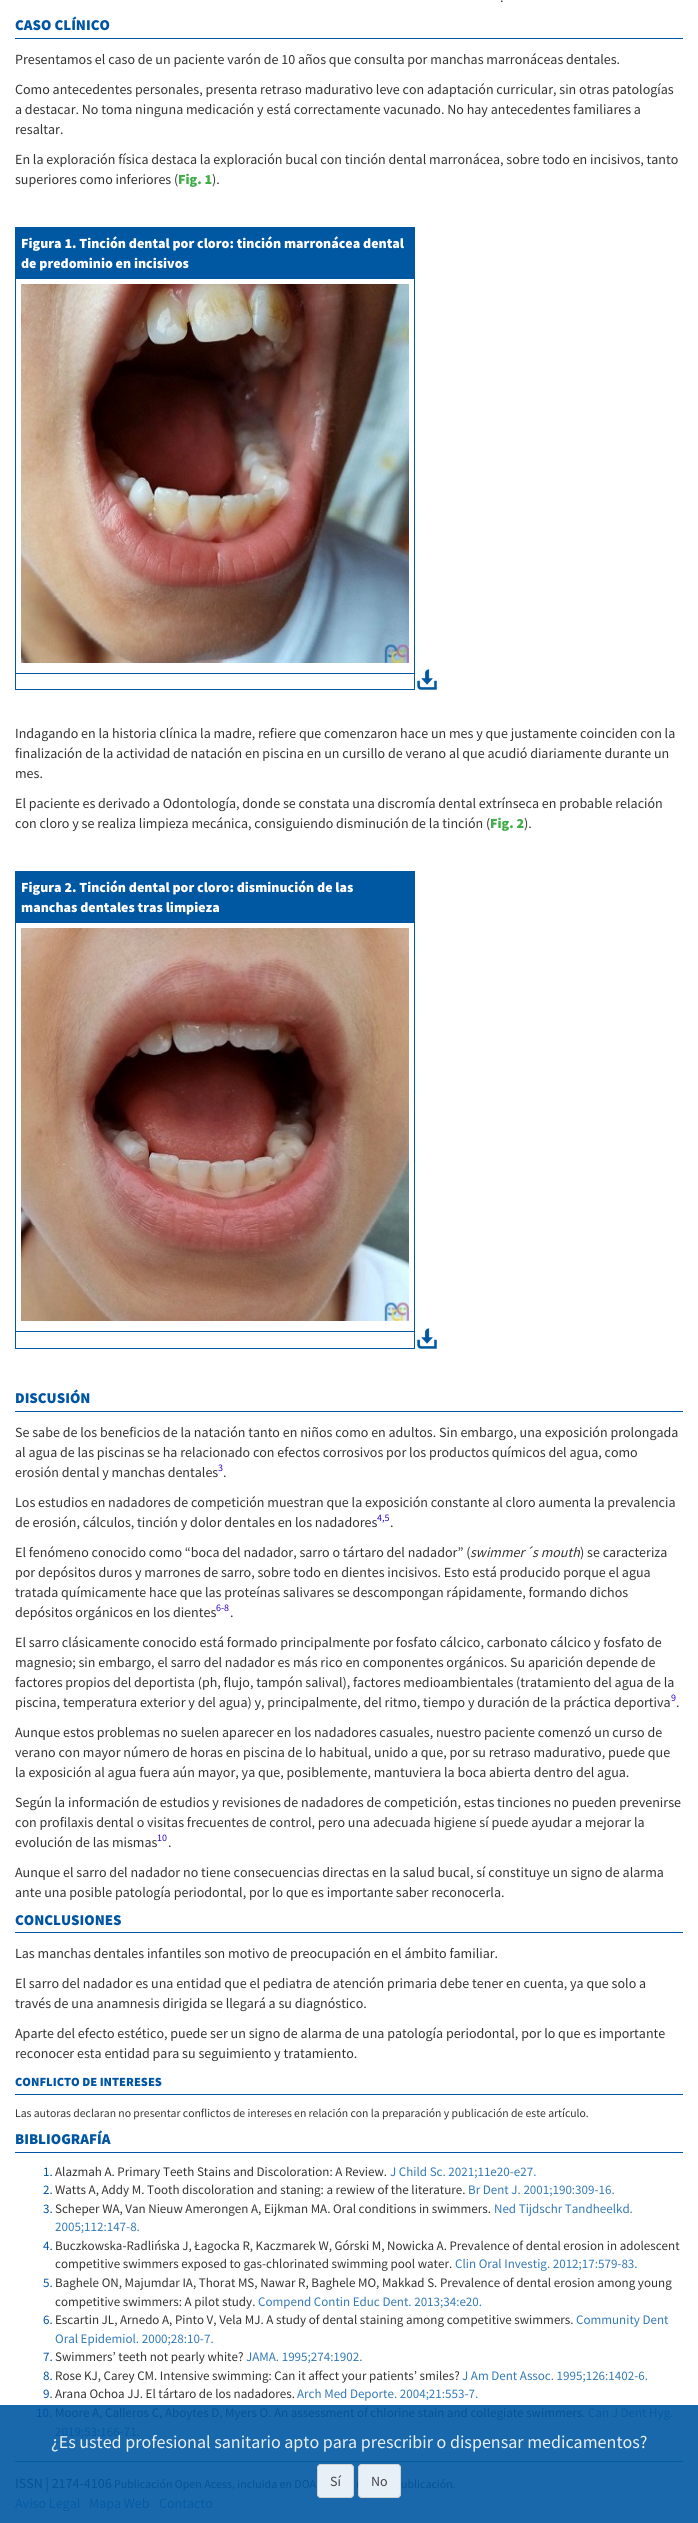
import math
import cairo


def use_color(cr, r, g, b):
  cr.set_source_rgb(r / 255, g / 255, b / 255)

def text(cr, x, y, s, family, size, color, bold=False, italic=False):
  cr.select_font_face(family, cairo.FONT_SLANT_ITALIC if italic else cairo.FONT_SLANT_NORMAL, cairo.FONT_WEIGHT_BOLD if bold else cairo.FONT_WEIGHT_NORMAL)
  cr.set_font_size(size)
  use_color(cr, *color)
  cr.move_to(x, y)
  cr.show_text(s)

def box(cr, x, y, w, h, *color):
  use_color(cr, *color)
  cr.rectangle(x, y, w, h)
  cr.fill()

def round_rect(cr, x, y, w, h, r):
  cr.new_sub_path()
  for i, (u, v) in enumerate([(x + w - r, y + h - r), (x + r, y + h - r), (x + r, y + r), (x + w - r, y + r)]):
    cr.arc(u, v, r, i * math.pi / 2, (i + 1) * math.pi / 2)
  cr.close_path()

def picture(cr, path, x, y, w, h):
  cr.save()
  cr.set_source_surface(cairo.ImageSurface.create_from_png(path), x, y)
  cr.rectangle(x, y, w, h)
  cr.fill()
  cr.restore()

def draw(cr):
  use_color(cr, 255, 255, 255)
  cr.paint()
  box(cr, 0, 2405, 698, 118, 25, 104, 171)
  box(cr, 15, 38, 668, 1, 0, 84, 164)
  box(cr, 15, 227, 400, 1, 0, 87, 162)
  box(cr, 414, 227, 1, 463, 0, 87, 162)
  box(cr, 15, 689, 400, 1, 0, 87, 162)
  box(cr, 15, 227, 1, 463, 0, 87, 162)
  box(cr, 16, 228, 398, 50, 0, 87, 162)
  box(cr, 15, 278, 400, 1, 0, 87, 162)
  box(cr, 15, 673, 400, 1, 0, 87, 162)
  picture(cr, "img_01.png", 21, 284, 388, 379)
  picture(cr, "img_02.png", 417, 669, 20, 21)
  box(cr, 15, 871, 400, 1, 0, 87, 162)
  box(cr, 414, 871, 1, 478, 0, 87, 162)
  box(cr, 15, 1348, 400, 1, 0, 87, 162)
  box(cr, 15, 871, 1, 478, 0, 87, 162)
  box(cr, 16, 872, 398, 51, 0, 87, 162)
  box(cr, 15, 1331, 400, 1, 0, 87, 162)
  picture(cr, "img_03.png", 21, 928, 388, 393)
  picture(cr, "img_02.png", 417, 1328, 20, 21)
  box(cr, 15, 1411, 668, 1, 0, 84, 164)
  box(cr, 15, 1932, 668, 1, 0, 84, 164)
  box(cr, 15, 2094, 668, 1, 0, 84, 164)
  box(cr, 15, 2152, 668, 1, 0, 84, 164)
  box(cr, 15, 2461, 668, 1, 3, 91, 159)
  cr.set_source_rgba(1, 1, 1, 0.9)
  round_rect(cr, 317, 2464, 37, 34, 4)
  cr.fill()
  round_rect(cr, 317.5, 2464.5, 36, 33, 3.5)
  cr.set_source_rgba(0.8, 0.8, 0.8, 0.9)
  cr.set_line_width(1)
  cr.stroke()
  text(cr, 500, 2, ".", "Source Sans Pro", 14, (51, 51, 51))
  text(cr, 15, 30, "CASO CLÍNICO", "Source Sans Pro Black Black", 15, (0, 84, 164))
  text(cr, 15, 64, "Presentamos el caso de un paciente varón de 10 años que consulta por manchas marronáceas dentales.", "Source Sans Pro", 14, (51, 51, 51))
  text(cr, 15, 94, "Como antecedentes personales, presenta retraso madurativo leve con adaptación curricular, sin otras patologías", "Source Sans Pro", 14, (51, 51, 51))
  text(cr, 15, 114, "a destacar. No toma ninguna medicación y está correctamente vacunado. No hay antecedentes familiares a", "Source Sans Pro", 14, (51, 51, 51))
  text(cr, 15, 134, "resaltar.", "Source Sans Pro", 14, (51, 51, 51))
  text(cr, 15, 164, "En la exploración física destaca la exploración bucal con tinción dental marronácea, sobre todo en incisivos, tanto", "Source Sans Pro", 14, (51, 51, 51))
  text(cr, 15, 184, "superiores como inferiores (", "Source Sans Pro", 14, (51, 51, 51))
  text(cr, 178, 184, "Fig. 1", "Source Sans Pro Black Black", 14, (65, 173, 73))
  text(cr, 212, 184, ").", "Source Sans Pro", 14, (51, 51, 51))
  text(cr, 21, 248, "Figura 1. Tinción dental por cloro: tinción marronácea dental", "Source Sans Pro Black Black", 14, (255, 255, 255))
  text(cr, 21, 268, "de predominio en incisivos", "Source Sans Pro Black Black", 14, (255, 255, 255))
  text(cr, 15, 738, "Indagando en la historia clínica la madre, refiere que comenzaron hace un mes y que justamente coinciden con la", "Source Sans Pro", 14, (51, 51, 51))
  text(cr, 15, 758, "finalización de la actividad de natación en piscina en un cursillo de verano al que acudió diariamente durante un", "Source Sans Pro", 14, (51, 51, 51))
  text(cr, 15, 778, "mes.", "Source Sans Pro", 14, (51, 51, 51))
  text(cr, 15, 808, "El paciente es derivado a Odontología, donde se constata una discromía dental extrínseca en probable relación", "Source Sans Pro", 14, (51, 51, 51))
  text(cr, 15, 828, "con cloro y se realiza limpieza mecánica, consiguiendo disminución de la tinción (", "Source Sans Pro", 14, (51, 51, 51))
  text(cr, 490, 828, "Fig. 2", "Source Sans Pro Black Black", 14, (65, 173, 73))
  text(cr, 524, 828, ").", "Source Sans Pro", 14, (51, 51, 51))
  text(cr, 21, 892, "Figura 2. Tinción dental por cloro: disminución de las", "Source Sans Pro Black Black", 14, (255, 255, 255))
  text(cr, 21, 912, "manchas dentales tras limpieza", "Source Sans Pro Black Black", 14, (255, 255, 255))
  text(cr, 15, 1403, "DISCUSIÓN", "Source Sans Pro Black Black", 15, (0, 84, 164))
  text(cr, 15, 1437, "Se sabe de los beneficios de la natación tanto en niños como en adultos. Sin embargo, una exposición prolongada", "Source Sans Pro", 14, (51, 51, 51))
  text(cr, 15, 1457, "al agua de las piscinas se ha relacionado con efectos corrosivos por los productos químicos del agua, como", "Source Sans Pro", 14, (51, 51, 51))
  text(cr, 15, 1477, "erosión dental y manchas dentales", "Source Sans Pro", 14, (51, 51, 51))
  text(cr, 218, 1471, "3", "Source Sans Pro", 10, (51, 0, 204))
  text(cr, 223, 1477, ".", "Source Sans Pro", 14, (51, 51, 51))
  text(cr, 15, 1507, "Los estudios en nadadores de competición muestran que la exposición constante al cloro aumenta la prevalencia", "Source Sans Pro", 14, (51, 51, 51))
  text(cr, 15, 1527, "de erosión, cálculos, tinción y dolor dentales en los nadadores", "Source Sans Pro", 14, (51, 51, 51))
  text(cr, 377, 1521, "4,5", "Source Sans Pro", 10, (51, 0, 204))
  text(cr, 390, 1527, ".", "Source Sans Pro", 14, (51, 51, 51))
  text(cr, 15, 1557, "El fenómeno conocido como “boca del nadador, sarro o tártaro del nadador” (", "Source Sans Pro", 14, (51, 51, 51))
  text(cr, 470, 1557, "swimmer´s mouth", "Source Sans Pro", 14, (51, 51, 51), italic=True)
  text(cr, 580, 1557, ") se caracteriza", "Source Sans Pro", 14, (51, 51, 51))
  text(cr, 15, 1577, "por depósitos duros y marrones de sarro, sobre todo en dientes incisivos. Esto está producido porque el agua", "Source Sans Pro", 14, (51, 51, 51))
  text(cr, 15, 1597, "tratada químicamente hace que las proteínas salivares se descompongan rápidamente, formando dichos", "Source Sans Pro", 14, (51, 51, 51))
  text(cr, 15, 1617, "depósitos orgánicos en los dientes", "Source Sans Pro", 14, (51, 51, 51))
  text(cr, 216, 1611, "6-8", "Source Sans Pro", 10, (51, 0, 204))
  text(cr, 230, 1617, ".", "Source Sans Pro", 14, (51, 51, 51))
  text(cr, 15, 1647, "El sarro clásicamente conocido está formado principalmente por fosfato cálcico, carbonato cálcico y fosfato de", "Source Sans Pro", 14, (51, 51, 51))
  text(cr, 15, 1667, "magnesio; sin embargo, el sarro del nadador es más rico en componentes orgánicos. Su aparición depende de", "Source Sans Pro", 14, (51, 51, 51))
  text(cr, 15, 1687, "factores propios del deportista (ph, flujo, tampón salival), factores medioambientales (tratamiento del agua de la", "Source Sans Pro", 14, (51, 51, 51))
  text(cr, 15, 1707, "piscina, temperatura exterior y del agua) y, principalmente, del ritmo, tiempo y duración de la práctica deportiva", "Source Sans Pro", 14, (51, 51, 51))
  text(cr, 671, 1701, "9", "Source Sans Pro", 10, (51, 0, 204))
  text(cr, 676, 1707, ".", "Source Sans Pro", 14, (51, 51, 51))
  text(cr, 15, 1737, "Aunque estos problemas no suelen aparecer en los nadadores casuales, nuestro paciente comenzó un curso de", "Source Sans Pro", 14, (51, 51, 51))
  text(cr, 15, 1757, "verano con mayor número de horas en piscina de lo habitual, unido a que, por su retraso madurativo, puede que", "Source Sans Pro", 14, (51, 51, 51))
  text(cr, 15, 1777, "la exposición al agua fuera aún mayor, ya que, posiblemente, mantuviera la boca abierta dentro del agua.", "Source Sans Pro", 14, (51, 51, 51))
  text(cr, 15, 1807, "Según la información de estudios y revisiones de nadadores de competición, estas tinciones no pueden prevenirse", "Source Sans Pro", 14, (51, 51, 51))
  text(cr, 15, 1827, "con profilaxis dental o visitas frecuentes de control, pero una adecuada higiene sí puede ayudar a mejorar la", "Source Sans Pro", 14, (51, 51, 51))
  text(cr, 15, 1847, "evolución de las mismas", "Source Sans Pro", 14, (51, 51, 51))
  text(cr, 157, 1841, "10", "Source Sans Pro", 10, (51, 0, 204))
  text(cr, 168, 1847, ".", "Source Sans Pro", 14, (51, 51, 51))
  text(cr, 15, 1877, "Aunque el sarro del nadador no tiene consecuencias directas en la salud bucal, sí constituye un signo de alarma", "Source Sans Pro", 14, (51, 51, 51))
  text(cr, 15, 1897, "ante una posible patología periodontal, por lo que es importante saber reconocerla.", "Source Sans Pro", 14, (51, 51, 51))
  text(cr, 15, 1925, "CONCLUSIONES", "Source Sans Pro Black Black", 15, (0, 84, 164))
  text(cr, 15, 1958, "Las manchas dentales infantiles son motivo de preocupación en el ámbito familiar.", "Source Sans Pro", 14, (51, 51, 51))
  text(cr, 15, 1988, "El sarro del nadador es una entidad que el pediatra de atención primaria debe tener en cuenta, ya que solo a", "Source Sans Pro", 14, (51, 51, 51))
  text(cr, 15, 2008, "través de una anamnesis dirigida se llegará a su diagnóstico.", "Source Sans Pro", 14, (51, 51, 51))
  text(cr, 15, 2038, "Aparte del efecto estético, puede ser un signo de alarma de una patología periodontal, por lo que es importante", "Source Sans Pro", 14, (51, 51, 51))
  text(cr, 15, 2058, "reconocer esta entidad para su seguimiento y tratamiento.", "Source Sans Pro", 14, (51, 51, 51))
  text(cr, 15, 2086, "CONFLICTO DE INTERESES", "Source Sans Pro Black Black", 12.5, (0, 84, 164))
  text(cr, 15, 2117, "Las autoras declaran no presentar conflictos de intereses en relación con la preparación y publicación de este artículo.", "Source Sans Pro", 11.65, (51, 51, 51))
  text(cr, 15, 2144, "BIBLIOGRAFÍA", "Source Sans Pro Black Black", 15, (0, 84, 164))
  text(cr, 43, 2176, "1.", "Source Sans Pro", 13, (0, 84, 164))
  text(cr, 55, 2176, "Alazmah A. Primary Teeth Stains and Discoloration: A Review.", "Source Sans Pro", 13, (51, 51, 51))
  text(cr, 390, 2176, "J Child Sc. 2021;11e20-e27.", "Source Sans Pro", 13, (51, 122, 183))
  text(cr, 43, 2194, "2.", "Source Sans Pro", 13, (0, 84, 164))
  text(cr, 55, 2194, "Watts A, Addy M. Tooth discoloration and staning: a rewiew of the literature.", "Source Sans Pro", 13, (51, 51, 51))
  text(cr, 468, 2194, "Br Dent J. 2001;190:309-16.", "Source Sans Pro", 13, (51, 122, 183))
  text(cr, 43, 2213, "3.", "Source Sans Pro", 13, (0, 84, 164))
  text(cr, 55, 2213, "Scheper WA, Van Nieuw Amerongen A, Eijkman MA. Oral conditions in swimmers.", "Source Sans Pro", 13, (51, 51, 51))
  text(cr, 494, 2213, "Ned Tijdschr Tandheelkd.", "Source Sans Pro", 13, (51, 122, 183))
  text(cr, 55, 2231, "2005;112:147-8.", "Source Sans Pro", 13, (51, 122, 183))
  text(cr, 43, 2250, "4.", "Source Sans Pro", 13, (0, 84, 164))
  text(cr, 55, 2250, "Buczkowska-Radlińska J, Łagocka R, Kaczmarek W, Górski M, Nowicka A. Prevalence of dental erosion in adolescent", "Source Sans Pro", 13, (51, 51, 51))
  text(cr, 55, 2268, "competitive swimmers exposed to gas-chlorinated swimming pool water.", "Source Sans Pro", 13, (51, 51, 51))
  text(cr, 455, 2268, "Clin Oral Investig. 2012;17:579-83.", "Source Sans Pro", 13, (51, 122, 183))
  text(cr, 43, 2287, "5.", "Source Sans Pro", 13, (0, 84, 164))
  text(cr, 55, 2287, "Baghele ON, Majumdar IA, Thorat MS, Nawar R, Baghele MO, Makkad S. Prevalence of dental erosion among young", "Source Sans Pro", 13, (51, 51, 51))
  text(cr, 55, 2306, "competitive swimmers: A pilot study.", "Source Sans Pro", 13, (51, 51, 51))
  text(cr, 258, 2306, "Compend Contin Educ Dent. 2013;34:e20.", "Source Sans Pro", 13, (51, 122, 183))
  text(cr, 43, 2324, "6.", "Source Sans Pro", 13, (0, 84, 164))
  text(cr, 55, 2324, "Escartin JL, Arnedo A, Pinto V, Vela MJ. A study of dental staining among competitive swimmers.", "Source Sans Pro", 13, (51, 51, 51))
  text(cr, 576, 2324, "Community Dent", "Source Sans Pro", 13, (51, 122, 183))
  text(cr, 55, 2343, "Oral Epidemiol. 2000;28:10-7.", "Source Sans Pro", 13, (51, 122, 183))
  text(cr, 43, 2361, "7.", "Source Sans Pro", 13, (0, 84, 164))
  text(cr, 55, 2361, "Swimmers’ teeth not pearly white?", "Source Sans Pro", 13, (51, 51, 51))
  text(cr, 246, 2361, "JAMA. 1995;274:1902.", "Source Sans Pro", 13, (51, 122, 183))
  text(cr, 43, 2380, "8.", "Source Sans Pro", 13, (0, 84, 164))
  text(cr, 55, 2380, "Rose KJ, Carey CM. Intensive swimming: Can it affect your patients’ smiles?", "Source Sans Pro", 13, (51, 51, 51))
  text(cr, 462, 2380, "J Am Dent Assoc. 1995;126:1402-6.", "Source Sans Pro", 13, (51, 122, 183))
  text(cr, 43, 2398, "9.", "Source Sans Pro", 13, (0, 84, 164))
  text(cr, 55, 2398, "Arana Ochoa JJ. El tártaro de los nadadores.", "Source Sans Pro", 13, (51, 51, 51))
  text(cr, 297, 2398, "Arch Med Deporte. 2004;21:553-7.", "Source Sans Pro", 13, (51, 122, 183))
  text(cr, 36, 2417, "10.", "Source Sans Pro", 13, (0, 84, 164))
  text(cr, 55, 2417, "Moore A, Calleros C, Aboytes D, Myers O. An assessment of chlorine stain and collegiate swimmers.", "Source Sans Pro", 13, (5, 83, 151))
  text(cr, 588, 2417, "Can J Dent Hyg.", "Source Sans Pro", 13, (5, 91, 164))
  text(cr, 55, 2436, "2019;53:166-71.", "Source Sans Pro", 13, (5, 91, 164))
  text(cr, 51, 2448, "¿Es usted profesional sanitario apto para prescribir o dispensar medicamentos?", "Source Sans Pro", 18, (232, 240, 247))
  text(cr, 330, 2486, "Sí", "Source Sans Pro", 14, (69, 70, 71))
  text(cr, 15, 2488, "ISSN | 2174-4106", "Source Sans Pro", 14, (5, 83, 151))
  text(cr, 114, 2488, "Publicación Open Acess, incluida en DOA", "Source Sans Pro", 11.9, (5, 83, 151))
  text(cr, 356, 2488, "r", "Source Sans Pro", 11.9, (5, 83, 151))
  cr.set_source_rgba(1, 1, 1, 0.9)
  round_rect(cr, 358, 2464, 43, 34, 4)
  cr.fill()
  round_rect(cr, 358.5, 2464.5, 42, 33, 3.5)
  cr.set_source_rgba(0.8, 0.8, 0.8, 0.9)
  cr.stroke()
  text(cr, 371, 2486, "No", "Source Sans Pro", 14, (69, 70, 71))
  text(cr, 401, 2488, "ublicación.", "Source Sans Pro", 11.9, (5, 83, 151))
  text(cr, 15, 2508, "Aviso Legal", "Source Sans Pro", 14, (5, 91, 164))
  text(cr, 89, 2508, "Mapa Web", "Source Sans Pro", 14, (5, 91, 164))
  text(cr, 159, 2508, "Contacto", "Source Sans Pro", 14, (5, 91, 164))


surface = cairo.ImageSurface(cairo.FORMAT_RGB24, 698, 2523)
cr = cairo.Context(surface)
options = cairo.FontOptions()
options.set_hint_metrics(cairo.HINT_METRICS_OFF)
options.set_hint_style(cairo.HINT_STYLE_NONE)
cr.set_font_options(options)
cr.set_miter_limit(4)
draw(cr)
surface.write_to_png("out.png")
